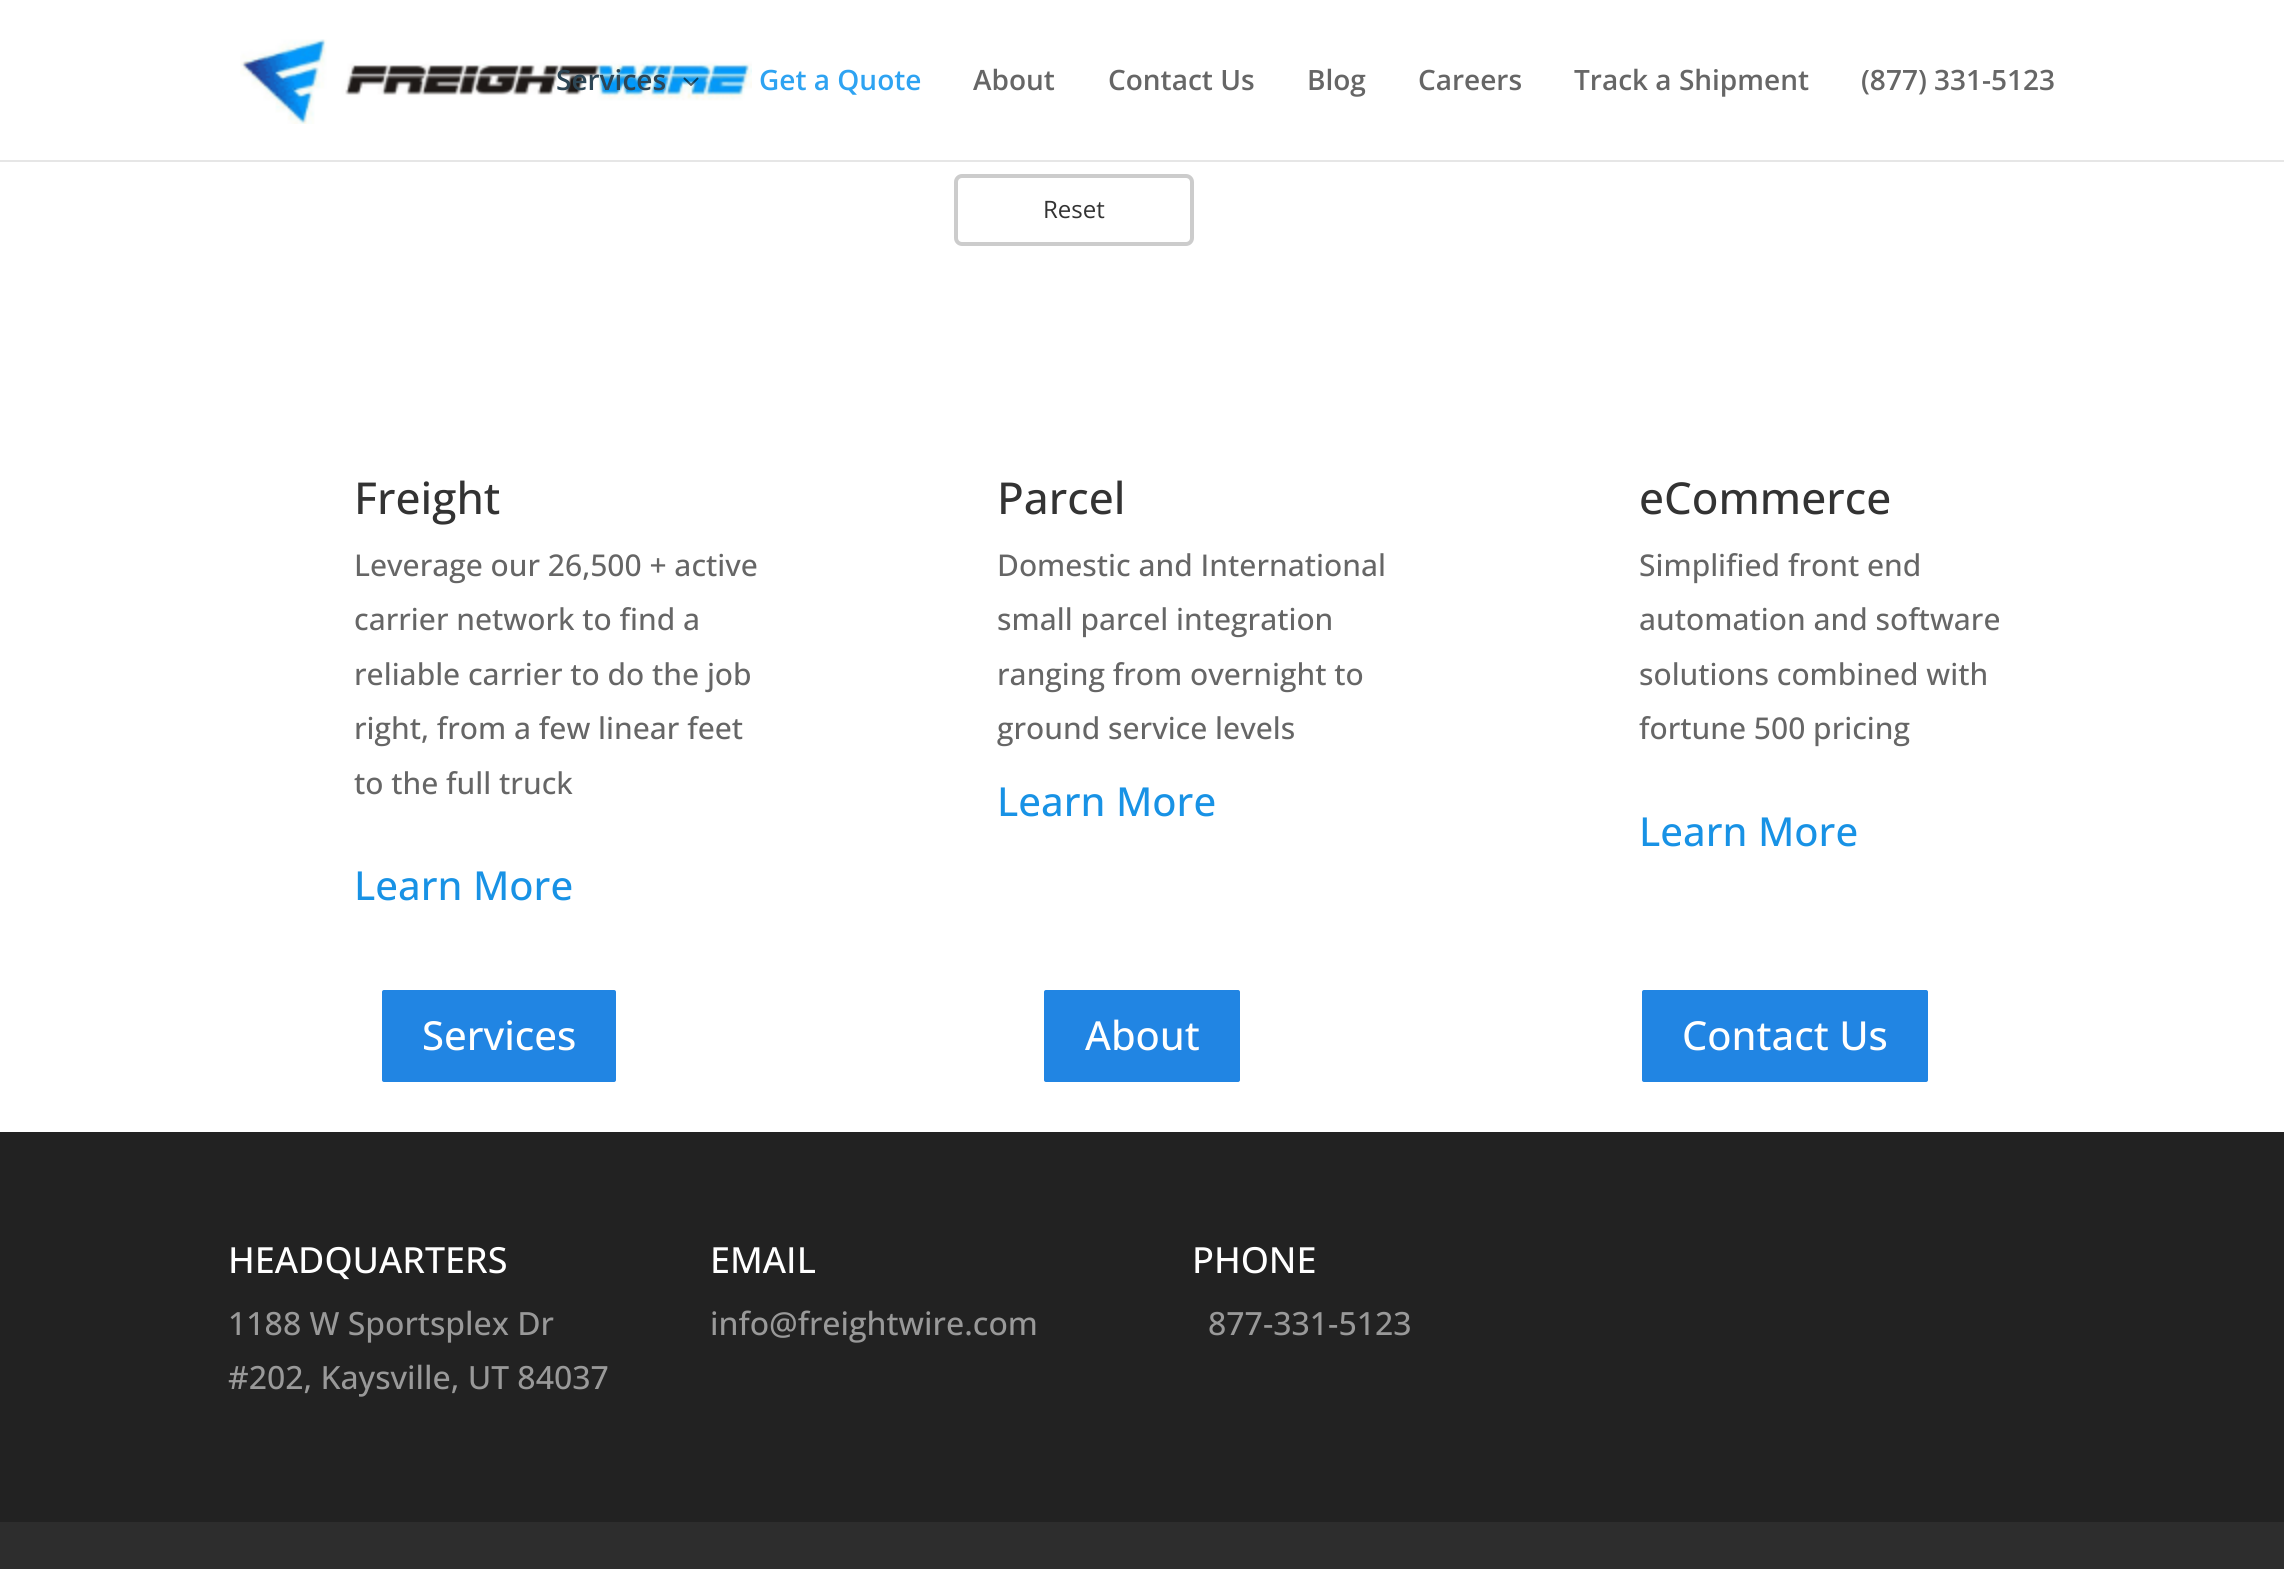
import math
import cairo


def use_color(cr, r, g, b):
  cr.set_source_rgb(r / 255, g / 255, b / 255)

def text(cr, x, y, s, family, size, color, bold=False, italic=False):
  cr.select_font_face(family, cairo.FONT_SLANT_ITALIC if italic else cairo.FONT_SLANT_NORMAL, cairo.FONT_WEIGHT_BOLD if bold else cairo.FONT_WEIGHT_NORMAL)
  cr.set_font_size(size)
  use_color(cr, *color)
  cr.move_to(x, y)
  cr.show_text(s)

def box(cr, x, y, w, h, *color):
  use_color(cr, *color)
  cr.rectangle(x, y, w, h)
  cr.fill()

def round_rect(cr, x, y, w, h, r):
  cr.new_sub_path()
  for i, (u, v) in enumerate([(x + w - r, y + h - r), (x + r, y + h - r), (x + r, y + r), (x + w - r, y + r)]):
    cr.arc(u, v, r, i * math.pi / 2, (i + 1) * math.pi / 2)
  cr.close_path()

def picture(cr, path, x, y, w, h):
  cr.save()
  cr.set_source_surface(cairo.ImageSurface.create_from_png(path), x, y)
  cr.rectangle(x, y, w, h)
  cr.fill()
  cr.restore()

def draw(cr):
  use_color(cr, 255, 255, 255)
  cr.paint()
  box(cr, 0, 160, 2284, 2, 230, 230, 230)
  picture(cr, "img_01.png", 240, 39, 512, 85)
  picture(cr, "img_02.png", 683, 77, 16, 9)
  round_rect(cr, 956, 176, 236, 68, 6)
  use_color(cr, 204, 204, 204)
  cr.set_line_width(4)
  cr.stroke()
  use_color(cr, 33, 133, 227)
  round_rect(cr, 380, 988, 238, 96, 4)
  cr.fill_preserve()
  use_color(cr, 255, 255, 255)
  cr.stroke()
  use_color(cr, 33, 133, 227)
  round_rect(cr, 1042, 988, 200, 96, 4)
  cr.fill_preserve()
  use_color(cr, 255, 255, 255)
  cr.stroke()
  use_color(cr, 33, 133, 227)
  round_rect(cr, 1640, 988, 290, 96, 4)
  cr.fill_preserve()
  use_color(cr, 255, 255, 255)
  cr.stroke()
  box(cr, 0, 1132, 2284, 390, 34, 34, 34)
  box(cr, 0, 1522, 2284, 47, 45, 45, 45)
  text(cr, 556, 90, "Services", "Open Sans SemiBold", 28, (45, 70, 85))
  text(cr, 759, 90, "Get a Quote", "Open Sans SemiBold", 28, (46, 163, 242))
  text(cr, 973, 90, "About", "Open Sans SemiBold", 28, (102, 102, 102))
  text(cr, 1108, 90, "Contact Us", "Open Sans SemiBold", 28, (102, 102, 102))
  text(cr, 1307, 90, "Blog", "Open Sans SemiBold", 28, (102, 102, 102))
  text(cr, 1418, 90, "Careers", "Open Sans SemiBold", 28, (102, 102, 102))
  text(cr, 1574, 90, "Track a Shipment", "Open Sans SemiBold", 28, (102, 102, 102))
  text(cr, 1861, 90, "(877) 331-5123", "Open Sans SemiBold", 28, (102, 102, 102))
  text(cr, 1043, 218, "Reset", "Open Sans", 24, (51, 51, 51))
  text(cr, 354, 514, "Freight", "Open Sans Medium", 44, (51, 51, 51))
  text(cr, 354, 576, "Leverage our 26,500 + active", "Open Sans Medium", 30, (102, 102, 102))
  text(cr, 354, 630, "carrier network to find a", "Open Sans Medium", 30, (102, 102, 102))
  text(cr, 354, 685, "reliable carrier to do the job", "Open Sans Medium", 30, (102, 102, 102))
  text(cr, 354, 739, "right, from a few linear feet", "Open Sans Medium", 30, (102, 102, 102))
  text(cr, 354, 794, "to the full truck", "Open Sans Medium", 30, (102, 102, 102))
  text(cr, 354, 900, "Learn More", "Open Sans Medium", 40, (24, 146, 229))
  text(cr, 997, 514, "Parcel", "Open Sans Medium", 44, (51, 51, 51))
  text(cr, 997, 576, "Domestic and International", "Open Sans Medium", 30, (102, 102, 102))
  text(cr, 997, 630, "small parcel integration", "Open Sans Medium", 30, (102, 102, 102))
  text(cr, 997, 685, "ranging from overnight to", "Open Sans Medium", 30, (102, 102, 102))
  text(cr, 997, 739, "ground service levels", "Open Sans Medium", 30, (102, 102, 102))
  text(cr, 997, 816, "Learn More", "Open Sans Medium", 40, (24, 146, 229))
  text(cr, 1639, 514, "eCommerce", "Open Sans Medium", 44, (51, 51, 51))
  text(cr, 1639, 576, "Simplified front end", "Open Sans Medium", 30, (102, 102, 102))
  text(cr, 1639, 630, "automation and software", "Open Sans Medium", 30, (102, 102, 102))
  text(cr, 1639, 685, "solutions combined with", "Open Sans Medium", 30, (102, 102, 102))
  text(cr, 1639, 739, "fortune 500 pricing", "Open Sans Medium", 30, (102, 102, 102))
  text(cr, 1639, 846, "Learn More", "Open Sans Medium", 40, (24, 146, 229))
  text(cr, 422, 1050, "Services", "Open Sans Medium", 40, (255, 255, 255))
  text(cr, 1085, 1050, "About", "Open Sans Medium", 40, (255, 255, 255))
  text(cr, 1682, 1050, "Contact Us", "Open Sans Medium", 40, (255, 255, 255))
  text(cr, 228, 1273, "HEADQUARTERS", "Open Sans Medium", 36, (255, 255, 255))
  text(cr, 228, 1335, "1188 W Sportsplex Dr", "Open Sans Medium", 32, (153, 153, 153))
  text(cr, 228, 1389, "#202, Kaysville, UT 84037", "Open Sans Medium", 32, (153, 153, 153))
  text(cr, 710, 1273, "EMAIL", "Open Sans Medium", 36, (255, 255, 255))
  text(cr, 710, 1335, "info@freightwire.com", "Open Sans Medium", 32, (153, 153, 153))
  text(cr, 1192, 1273, "PHONE", "Open Sans Medium", 36, (255, 255, 255))
  text(cr, 1208, 1335, "877-331-5123", "Open Sans Medium", 32, (153, 153, 153))


surface = cairo.ImageSurface(cairo.FORMAT_RGB24, 2284, 1569)
cr = cairo.Context(surface)
options = cairo.FontOptions()
options.set_hint_metrics(cairo.HINT_METRICS_OFF)
options.set_hint_style(cairo.HINT_STYLE_NONE)
cr.set_font_options(options)
cr.set_miter_limit(4)
draw(cr)
surface.write_to_png("out.png")
